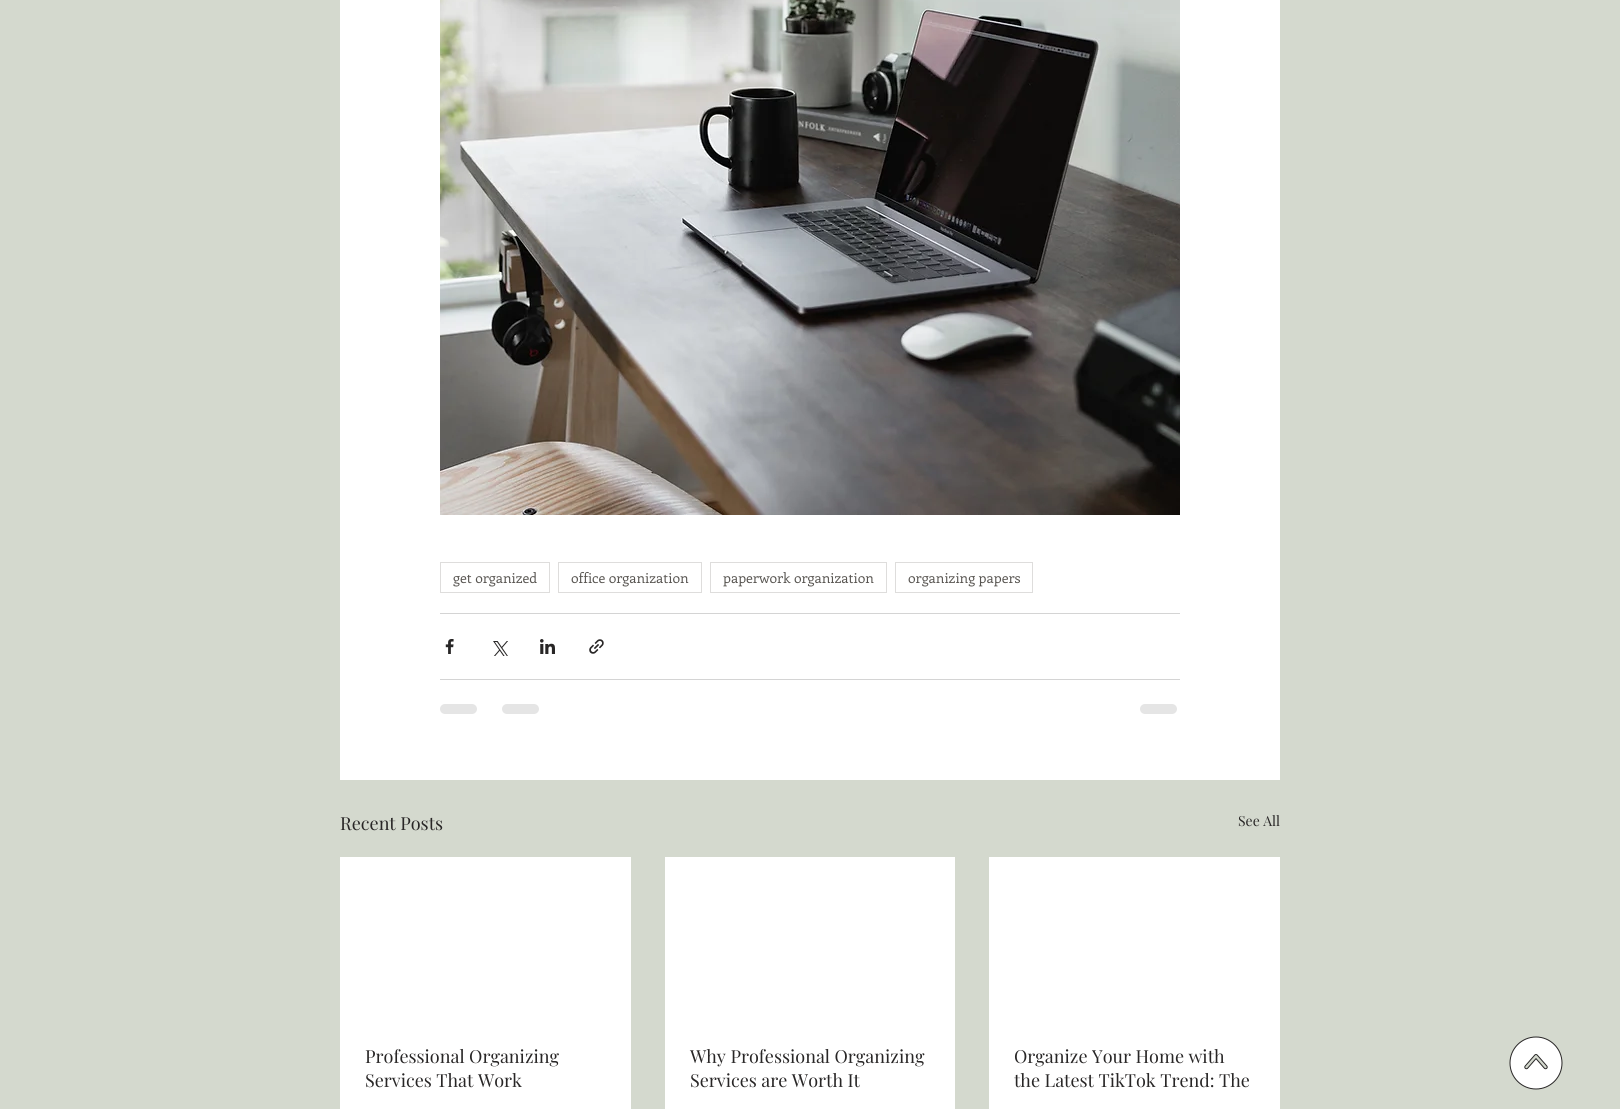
import math
import cairo


def use_color(cr, r, g, b):
  cr.set_source_rgb(r / 255, g / 255, b / 255)

def text(cr, x, y, s, family, size, color, bold=False, italic=False):
  cr.select_font_face(family, cairo.FONT_SLANT_ITALIC if italic else cairo.FONT_SLANT_NORMAL, cairo.FONT_WEIGHT_BOLD if bold else cairo.FONT_WEIGHT_NORMAL)
  cr.set_font_size(size)
  use_color(cr, *color)
  cr.move_to(x, y)
  cr.show_text(s)

def box(cr, x, y, w, h, *color):
  use_color(cr, *color)
  cr.rectangle(x, y, w, h)
  cr.fill()

def round_rect(cr, x, y, w, h, r):
  cr.new_sub_path()
  for i, (u, v) in enumerate([(x + w - r, y + h - r), (x + r, y + h - r), (x + r, y + r), (x + w - r, y + r)]):
    cr.arc(u, v, r, i * math.pi / 2, (i + 1) * math.pi / 2)
  cr.close_path()

def picture(cr, path, x, y, w, h):
  cr.save()
  cr.set_source_surface(cairo.ImageSurface.create_from_png(path), x, y)
  cr.rectangle(x, y, w, h)
  cr.fill()
  cr.restore()

def draw(cr):
  use_color(cr, 212, 217, 206)
  cr.paint()
  box(cr, 340, 0, 940, 780, 255, 255, 255)
  picture(cr, "img_01.png", 440, 0, 740, 515)
  cr.rectangle(440.5, 562.5, 109, 30)
  use_color(cr, 222, 221, 220)
  cr.set_line_width(1)
  cr.stroke()
  cr.rectangle(558.5, 562.5, 143, 30)
  cr.stroke()
  cr.rectangle(710.5, 562.5, 176, 30)
  cr.stroke()
  cr.rectangle(895.5, 562.5, 137, 30)
  cr.stroke()
  box(cr, 440, 613, 740, 1, 212, 212, 212)
  picture(cr, "img_02.png", 445, 639, 9, 15)
  picture(cr, "img_03.png", 493, 641, 15, 15)
  picture(cr, "img_04.png", 540, 639, 15, 15)
  picture(cr, "img_05.png", 589, 639, 15, 15)
  box(cr, 440, 679, 740, 1, 212, 212, 212)
  use_color(cr, 229, 229, 229)
  round_rect(cr, 440, 704, 37, 10, 5)
  cr.fill()
  round_rect(cr, 502, 704, 37, 10, 5)
  cr.fill()
  round_rect(cr, 1140, 704, 37, 10, 5)
  cr.fill()
  box(cr, 340, 857, 291, 252, 255, 255, 255)
  box(cr, 665, 857, 290, 252, 255, 255, 255)
  box(cr, 989, 857, 291, 252, 255, 255, 255)
  picture(cr, "img_06.png", 1509, 1036, 54, 54)
  text(cr, 453, 583, "get organized", "Enriqueta", 14, (88, 85, 81))
  text(cr, 571, 583, "office organization", "Enriqueta", 14, (88, 85, 81))
  text(cr, 723, 583, "paperwork organization", "Enriqueta", 14, (88, 85, 81))
  text(cr, 908, 583, "organizing papers", "Enriqueta", 14, (88, 85, 81))
  text(cr, 340, 830, "Recent Posts", "Playfair Display", 18, (40, 38, 38))
  text(cr, 1238, 826, "See All", "Playfair Display", 14, (40, 38, 38))
  text(cr, 365, 1063, "Professional Organizing", "Playfair Display", 18, (40, 38, 38))
  text(cr, 365, 1087, "Services That Work", "Playfair Display", 18, (40, 38, 38))
  text(cr, 690, 1063, "Why Professional Organizing", "Playfair Display", 18, (40, 38, 38))
  text(cr, 690, 1087, "Services are Worth It", "Playfair Display", 18, (40, 38, 38))
  text(cr, 1014, 1063, "Organize Your Home with", "Playfair Display", 18, (40, 38, 38))
  text(cr, 1014, 1087, "the Latest TikTok Trend: The", "Playfair Display", 18, (40, 38, 38))


surface = cairo.ImageSurface(cairo.FORMAT_RGB24, 1620, 1109)
cr = cairo.Context(surface)
options = cairo.FontOptions()
options.set_hint_metrics(cairo.HINT_METRICS_OFF)
options.set_hint_style(cairo.HINT_STYLE_NONE)
cr.set_font_options(options)
cr.set_miter_limit(4)
draw(cr)
surface.write_to_png("out.png")
